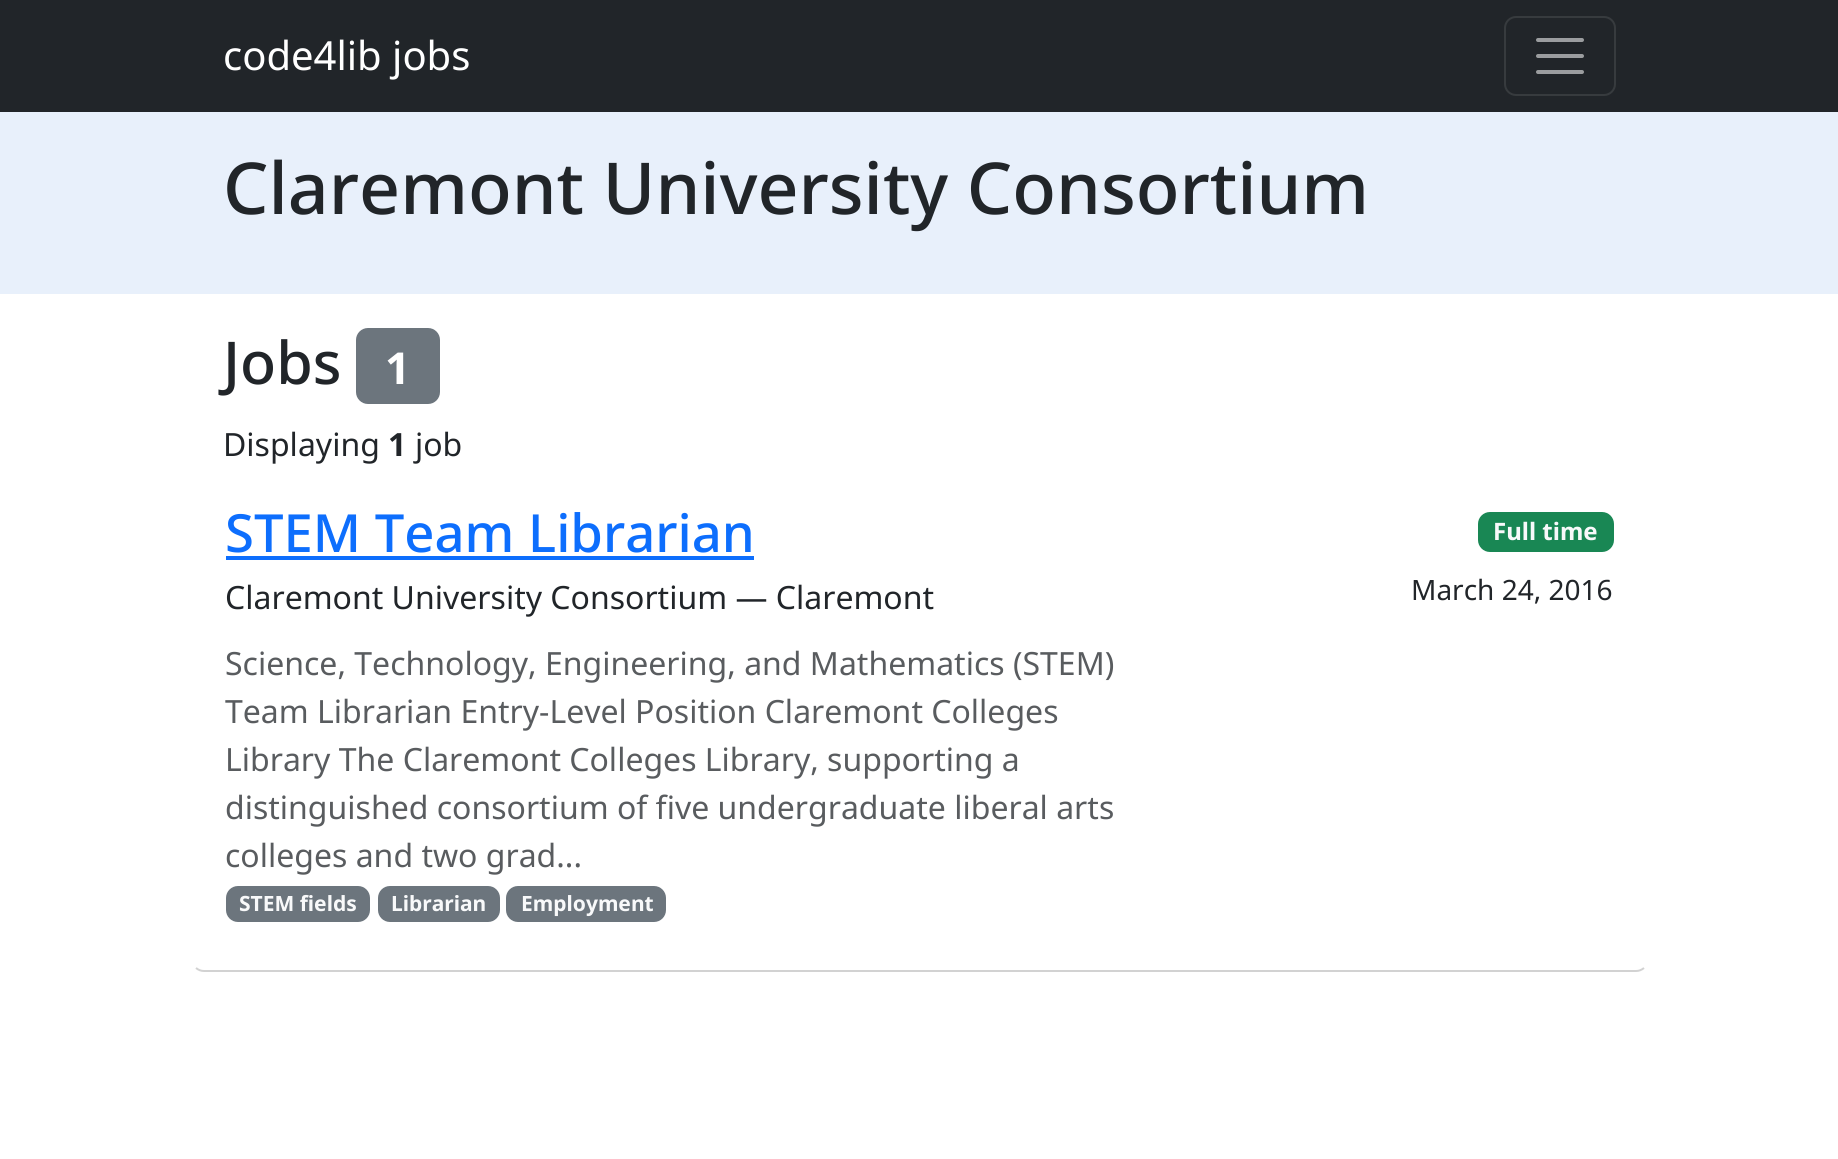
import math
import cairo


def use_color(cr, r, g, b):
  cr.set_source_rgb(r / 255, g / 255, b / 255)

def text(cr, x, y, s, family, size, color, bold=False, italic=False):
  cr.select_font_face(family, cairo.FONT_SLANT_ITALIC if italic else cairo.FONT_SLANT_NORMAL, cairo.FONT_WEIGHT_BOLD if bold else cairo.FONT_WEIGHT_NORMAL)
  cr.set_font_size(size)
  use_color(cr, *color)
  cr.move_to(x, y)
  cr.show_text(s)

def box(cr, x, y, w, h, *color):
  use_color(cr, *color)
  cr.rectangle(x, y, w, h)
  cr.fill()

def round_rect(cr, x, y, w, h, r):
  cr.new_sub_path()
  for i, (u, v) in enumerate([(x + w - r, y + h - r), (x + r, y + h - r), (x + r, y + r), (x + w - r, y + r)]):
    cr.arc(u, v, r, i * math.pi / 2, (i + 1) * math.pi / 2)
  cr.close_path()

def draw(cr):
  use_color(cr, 255, 255, 255)
  cr.paint()
  box(cr, 0, 0, 1838, 112, 33, 37, 41)
  round_rect(cr, 1505, 17, 110, 78, 11)
  use_color(cr, 55, 59, 62)
  cr.stroke()
  cr.new_path()
  cr.move_to(1538, 40)
  cr.line_to(1582, 40)
  cr.move_to(1538, 56)
  cr.line_to(1582, 56)
  cr.move_to(1538, 72)
  cr.line_to(1582, 72)
  use_color(cr, 155, 157, 159)
  cr.set_line_width(4)
  cr.set_line_cap(cairo.LINE_CAP_ROUND)
  cr.stroke()
  box(cr, 0, 112, 1838, 182, 232, 240, 251)
  use_color(cr, 108, 117, 125)
  round_rect(cr, 356, 328, 84, 76, 12)
  cr.fill()
  cr.new_path()
  cr.move_to(1644, 968)
  cr.curve_to(1641.5, 970, 1639, 971, 1636, 971)
  cr.line_to(204, 971)
  cr.curve_to(201, 971, 198.5, 970, 196, 968)
  use_color(cr, 210, 210, 210)
  cr.set_line_width(2)
  cr.set_line_cap(cairo.LINE_CAP_BUTT)
  cr.stroke()
  box(cr, 226, 556, 528, 4, 13, 110, 253)
  use_color(cr, 25, 135, 84)
  round_rect(cr, 1478, 512, 136, 40, 12)
  cr.fill()
  use_color(cr, 108, 117, 125)
  round_rect(cr, 226, 886, 144, 36, 12)
  cr.fill()
  round_rect(cr, 378, 886, 122, 36, 12)
  cr.fill()
  round_rect(cr, 506, 886, 160, 36, 12)
  cr.fill()
  text(cr, 223, 70, "code4lib jobs", "Noto Sans", 40, (255, 255, 255))
  text(cr, 223, 214, "Claremont University Consortium", "Noto Sans Medium", 71.6, (33, 37, 41))
  text(cr, 223, 384, "Jobs", "Noto Sans Medium", 59, (33, 37, 41))
  text(cr, 385, 384, "1", "Noto Sans", 44, (255, 255, 255), bold=True)
  text(cr, 223, 456, "Displaying", "Noto Sans", 32, (33, 37, 41))
  text(cr, 388, 456, "1", "Noto Sans", 32, (33, 37, 41), bold=True)
  text(cr, 415, 456, "job", "Noto Sans", 32, (33, 37, 41))
  text(cr, 225, 552, "STEM Team Librarian", "Noto Sans Medium", 52.6, (13, 110, 253))
  text(cr, 225, 609, "Claremont University Consortium — Claremont", "Noto Sans", 32, (33, 37, 41))
  text(cr, 1493, 540, "Full time", "Noto Sans", 24, (248, 249, 250), bold=True)
  text(cr, 1411, 600, "March 24, 2016", "Noto Sans", 28, (33, 37, 41))
  text(cr, 225, 675, "Science, Technology, Engineering, and Mathematics (STEM)", "Noto Sans", 32, (89, 92, 95))
  text(cr, 225, 723, "Team Librarian Entry-Level Position Claremont Colleges", "Noto Sans", 32, (89, 92, 95))
  text(cr, 225, 771, "Library The Claremont Colleges Library, supporting a", "Noto Sans", 32, (89, 92, 95))
  text(cr, 225, 819, "distinguished consortium of five undergraduate liberal arts", "Noto Sans", 32, (89, 92, 95))
  text(cr, 225, 867, "colleges and two grad...", "Noto Sans", 32, (89, 92, 95))
  text(cr, 239, 911, "STEM fields", "Noto Sans", 21, (248, 249, 250), bold=True)
  text(cr, 391, 911, "Librarian", "Noto Sans", 21, (248, 249, 250), bold=True)
  text(cr, 521, 911, "Employment", "Noto Sans", 21, (248, 249, 250), bold=True)


surface = cairo.ImageSurface(cairo.FORMAT_RGB24, 1838, 1159)
cr = cairo.Context(surface)
options = cairo.FontOptions()
options.set_hint_metrics(cairo.HINT_METRICS_OFF)
options.set_hint_style(cairo.HINT_STYLE_NONE)
cr.set_font_options(options)
cr.set_miter_limit(4)
draw(cr)
surface.write_to_png("out.png")
